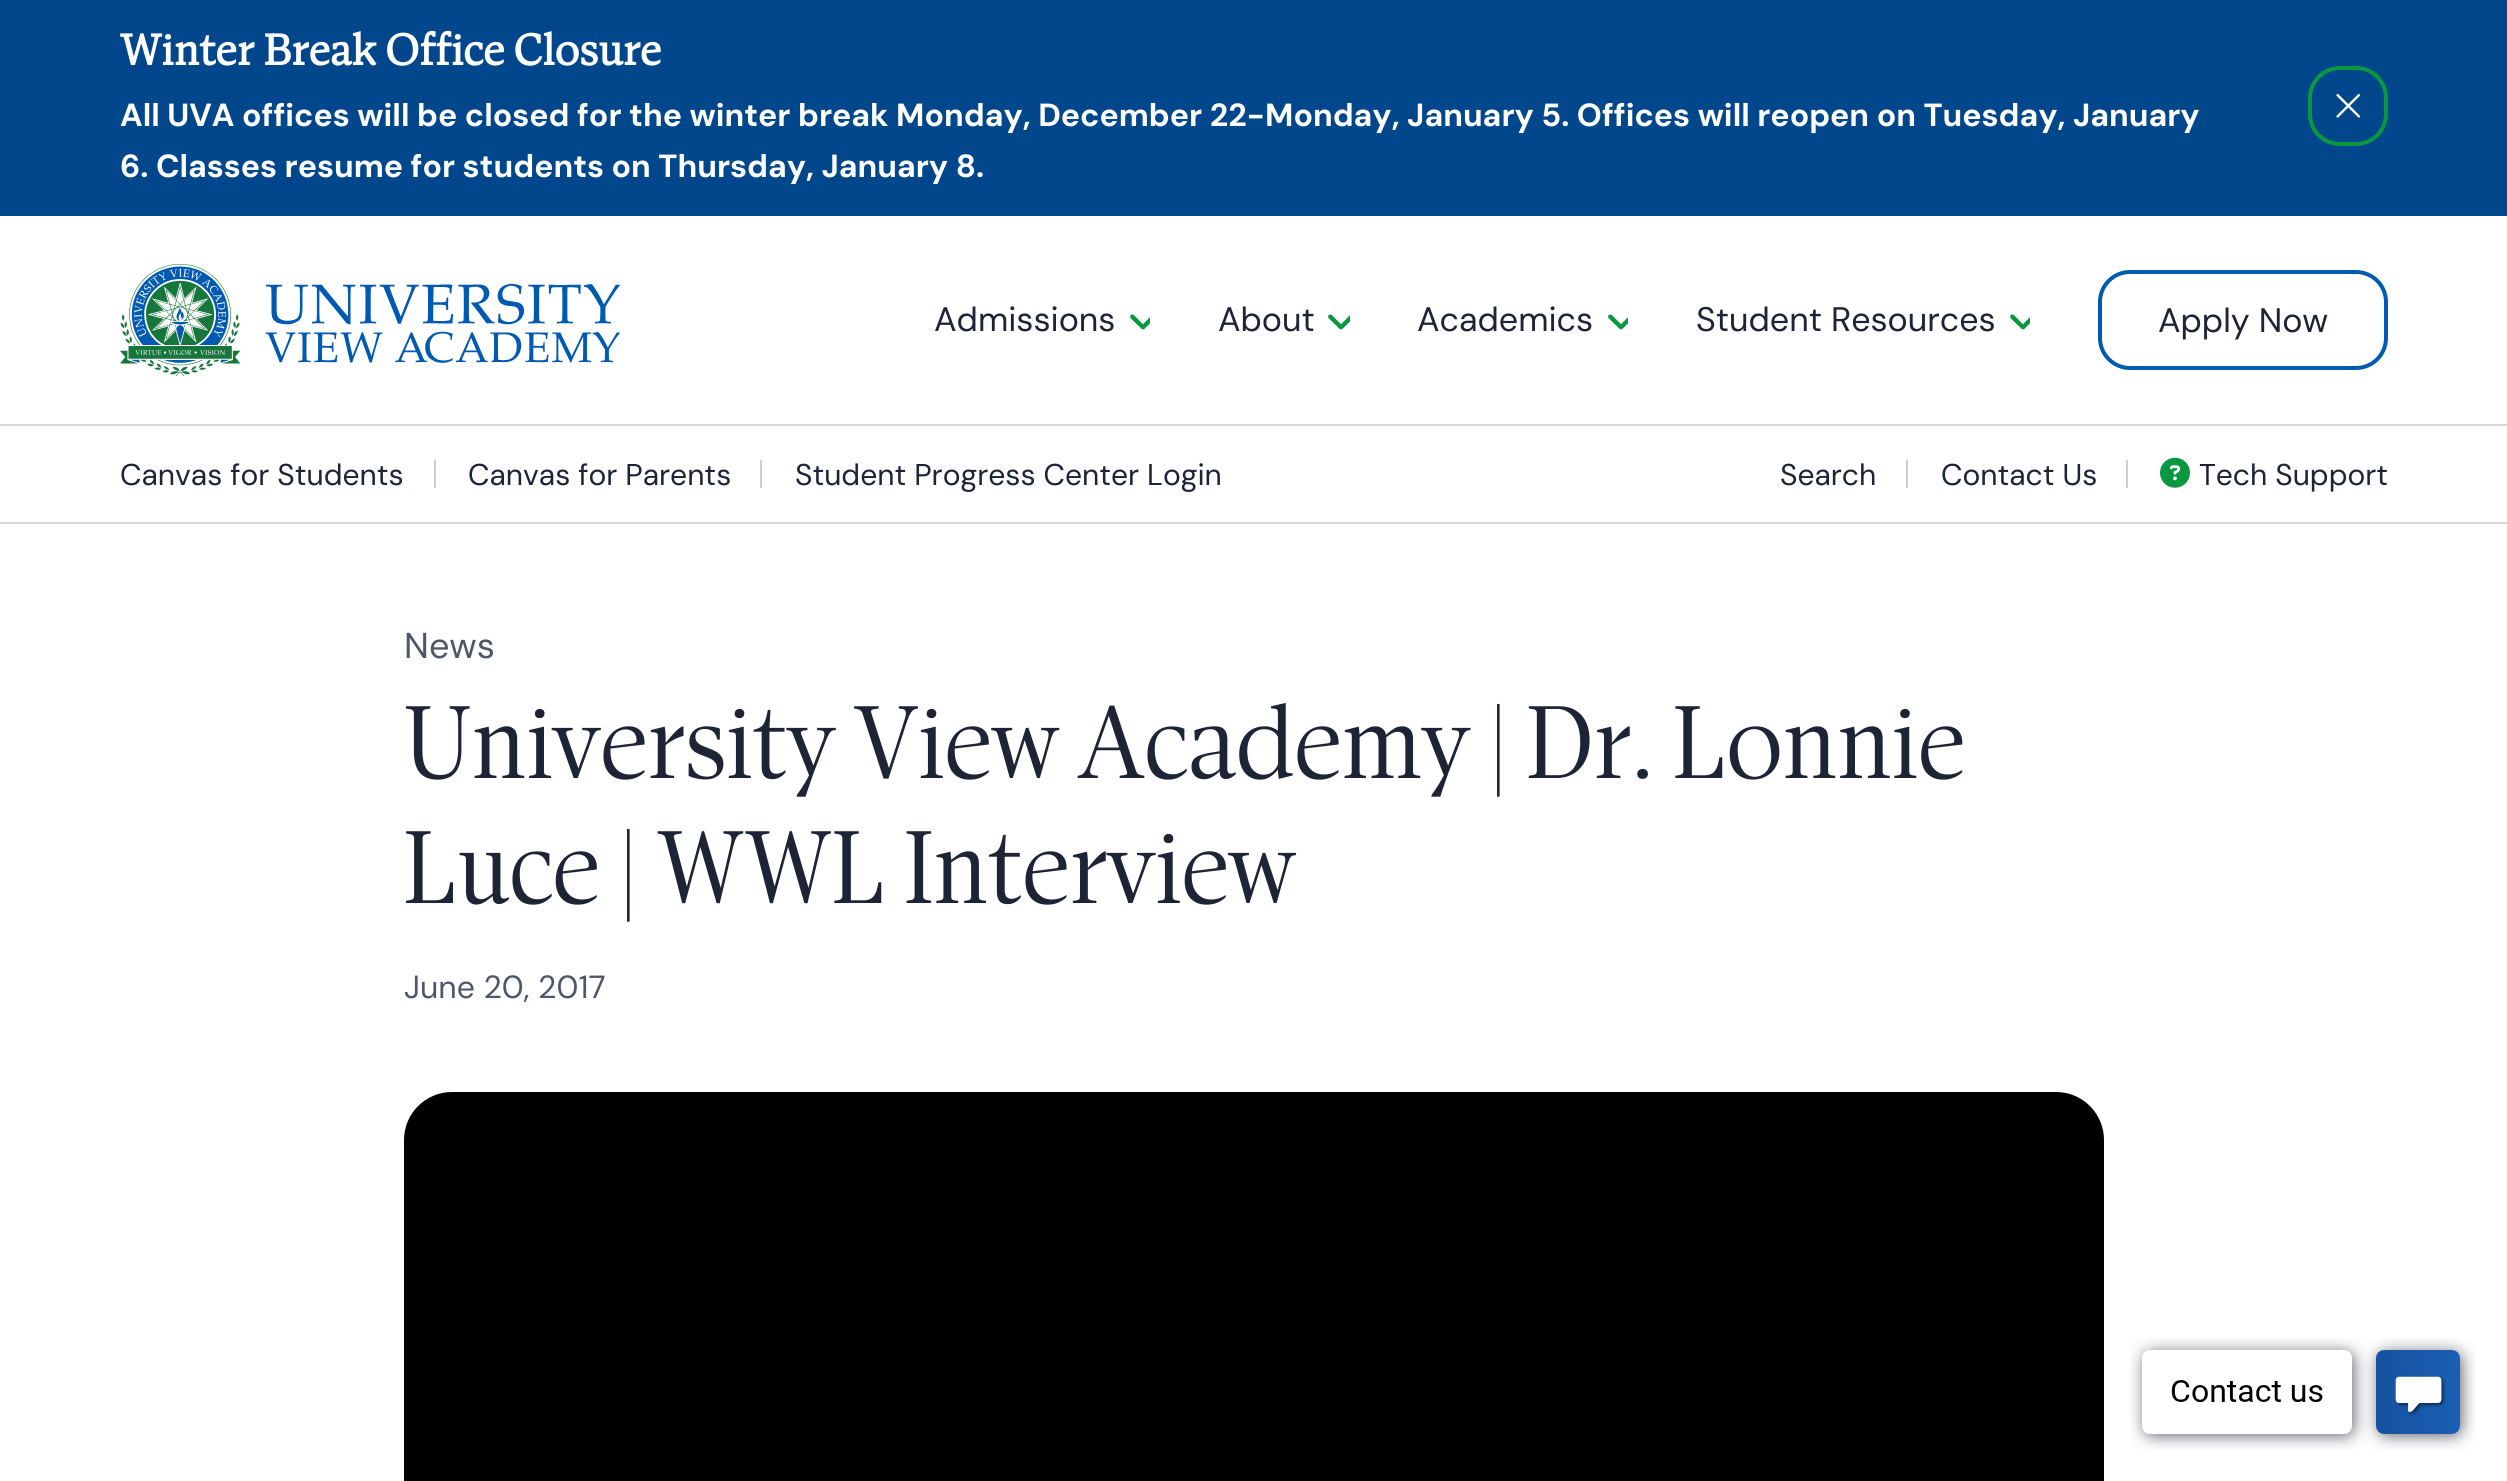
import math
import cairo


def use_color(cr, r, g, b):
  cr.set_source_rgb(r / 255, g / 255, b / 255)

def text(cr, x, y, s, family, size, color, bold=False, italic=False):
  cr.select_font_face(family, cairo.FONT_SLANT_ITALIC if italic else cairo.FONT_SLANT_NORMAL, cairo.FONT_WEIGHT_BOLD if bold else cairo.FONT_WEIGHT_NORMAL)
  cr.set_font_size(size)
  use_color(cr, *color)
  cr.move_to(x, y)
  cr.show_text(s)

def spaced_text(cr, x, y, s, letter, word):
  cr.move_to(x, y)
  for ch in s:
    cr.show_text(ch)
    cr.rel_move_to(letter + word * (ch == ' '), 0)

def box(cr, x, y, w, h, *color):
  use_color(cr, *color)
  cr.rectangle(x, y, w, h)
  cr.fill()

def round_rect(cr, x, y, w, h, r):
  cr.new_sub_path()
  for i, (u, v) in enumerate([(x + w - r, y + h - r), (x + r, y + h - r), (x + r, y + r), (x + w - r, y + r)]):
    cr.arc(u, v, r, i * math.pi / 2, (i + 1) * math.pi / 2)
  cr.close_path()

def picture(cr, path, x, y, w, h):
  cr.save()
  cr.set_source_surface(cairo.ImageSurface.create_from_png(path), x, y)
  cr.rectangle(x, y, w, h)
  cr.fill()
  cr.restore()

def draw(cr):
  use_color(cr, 255, 255, 255)
  cr.paint()
  box(cr, 0, 424, 2507, 2, 216, 216, 222)
  box(cr, 0, 0, 2507, 216, 2, 71, 140)
  round_rect(cr, 2310, 68, 76, 76, 30)
  use_color(cr, 9, 151, 64)
  cr.set_line_width(4)
  cr.stroke()
  picture(cr, "img_01.png", 2336, 93, 25, 25)
  picture(cr, "img_02.png", 120, 264, 500, 112)
  picture(cr, "img_03.png", 1130, 314, 20, 16)
  picture(cr, "img_04.png", 1328, 314, 22, 16)
  picture(cr, "img_03.png", 1608, 314, 20, 16)
  picture(cr, "img_05.png", 2010, 314, 20, 16)
  round_rect(cr, 2100, 272, 286, 96, 30)
  use_color(cr, 0, 90, 178)
  cr.stroke()
  box(cr, 0, 522, 2507, 2, 216, 216, 222)
  box(cr, 434, 460, 2, 28, 207, 207, 207)
  box(cr, 760, 460, 2, 28, 207, 207, 207)
  box(cr, 1906, 460, 2, 28, 207, 207, 207)
  box(cr, 2126, 460, 2, 28, 207, 207, 207)
  picture(cr, "img_06.png", 2160, 457, 30, 31)
  use_color(cr, 0, 0, 0)
  round_rect(cr, 404, 1092, 1700, 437, 48)
  cr.fill()
  picture(cr, "img_07.png", 2130, 1338, 346, 112)
  text(cr, 120, 65, "Winter Break Office Closure", "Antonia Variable", 44, (255, 255, 255), bold=True)
  text(cr, 120, 126, "All UVA offices will be closed for the winter break Monday, December 22-Monday, January 5. Offices will reopen on Tuesday, January", "DM Sans", 32, (255, 255, 255), bold=True)
  text(cr, 120, 177, "6. Classes resume for students on Thursday, January 8.", "DM Sans", 32, (255, 255, 255), bold=True)
  text(cr, 934, 331, "Admissions", "DM Sans", 34, (28, 36, 54))
  text(cr, 1218, 331, "About", "DM Sans", 34, (28, 36, 54))
  text(cr, 1417, 331, "Academics", "DM Sans", 34, (28, 36, 54))
  text(cr, 1696, 331, "Student Resources", "DM Sans", 34, (28, 36, 54))
  text(cr, 2158, 332, "Apply Now", "DM Sans", 34, (28, 36, 54))
  text(cr, 120, 485, "Canvas for Students", "DM Sans", 30, (28, 36, 54))
  text(cr, 468, 485, "Canvas for Parents", "DM Sans", 30, (28, 36, 54))
  text(cr, 795, 485, "Student Progress Center Login", "DM Sans", 30, (28, 36, 54))
  text(cr, 1780, 485, "Search", "DM Sans", 30, (28, 36, 54))
  text(cr, 1941, 485, "Contact Us", "DM Sans", 30, (28, 36, 54))
  text(cr, 2199, 485, "Tech Support", "DM Sans", 30, (28, 36, 54))
  text(cr, 404, 658, "News", "DM Sans", 36, (78, 87, 106))
  cr.select_font_face("Antonia Variable")
  cr.set_font_size(104)
  use_color(cr, 28, 36, 54)
  spaced_text(cr, 404, 778, "University View Academy | Dr. Lonnie", 0, 1.25)
  spaced_text(cr, 404, 903, "Luce | WWL Interview", 0, 1)
  text(cr, 404, 998, "June 20, 2017", "DM Sans", 32, (78, 87, 106))


surface = cairo.ImageSurface(cairo.FORMAT_RGB24, 2507, 1481)
cr = cairo.Context(surface)
options = cairo.FontOptions()
options.set_hint_metrics(cairo.HINT_METRICS_OFF)
options.set_hint_style(cairo.HINT_STYLE_NONE)
cr.set_font_options(options)
cr.set_miter_limit(4)
draw(cr)
surface.write_to_png("out.png")
